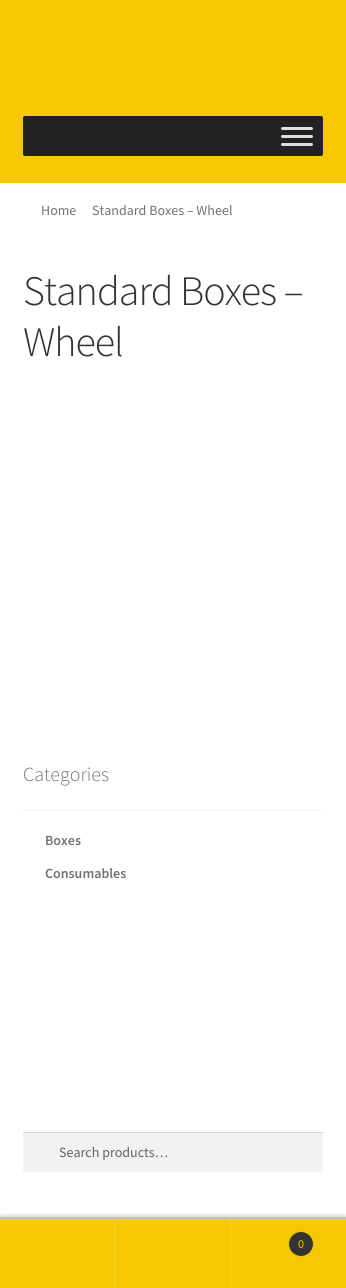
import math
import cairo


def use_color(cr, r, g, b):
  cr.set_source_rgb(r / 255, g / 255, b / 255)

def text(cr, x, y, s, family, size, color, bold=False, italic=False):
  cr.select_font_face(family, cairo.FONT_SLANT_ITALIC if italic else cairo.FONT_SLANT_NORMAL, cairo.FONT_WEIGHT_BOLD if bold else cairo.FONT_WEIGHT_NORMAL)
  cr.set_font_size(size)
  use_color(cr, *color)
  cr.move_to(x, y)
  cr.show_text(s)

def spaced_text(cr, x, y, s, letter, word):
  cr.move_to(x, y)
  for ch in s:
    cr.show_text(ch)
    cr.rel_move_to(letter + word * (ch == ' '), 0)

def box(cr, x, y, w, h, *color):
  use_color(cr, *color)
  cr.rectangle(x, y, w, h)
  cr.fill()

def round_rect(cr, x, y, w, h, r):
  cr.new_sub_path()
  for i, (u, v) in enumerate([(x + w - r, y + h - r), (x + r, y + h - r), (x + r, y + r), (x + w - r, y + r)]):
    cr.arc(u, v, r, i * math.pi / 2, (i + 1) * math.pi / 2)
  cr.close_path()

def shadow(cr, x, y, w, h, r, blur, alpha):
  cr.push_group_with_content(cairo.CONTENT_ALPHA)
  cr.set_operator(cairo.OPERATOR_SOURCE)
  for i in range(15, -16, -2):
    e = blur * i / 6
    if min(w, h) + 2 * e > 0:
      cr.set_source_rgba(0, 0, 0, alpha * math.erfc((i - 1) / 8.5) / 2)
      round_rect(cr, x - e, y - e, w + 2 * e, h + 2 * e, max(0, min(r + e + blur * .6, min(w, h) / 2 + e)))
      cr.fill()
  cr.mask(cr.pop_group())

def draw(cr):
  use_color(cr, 255, 255, 255)
  cr.paint()
  box(cr, 0, 0, 346, 183, 245, 200, 0)
  use_color(cr, 34, 34, 34)
  round_rect(cr, 23, 116, 300, 40, 2)
  cr.fill()
  use_color(cr, 221, 221, 221)
  round_rect(cr, 281, 127, 32, 3, 1.5)
  cr.fill()
  round_rect(cr, 281, 135, 32, 3, 1.5)
  cr.fill()
  round_rect(cr, 281, 143, 32, 3, 1.5)
  cr.fill()
  box(cr, 23, 810, 300, 1, 242, 242, 242)
  box(cr, 23, 1133, 300, 39, 242, 242, 242)
  box(cr, 23, 1132, 300, 1, 212, 212, 212)
  use_color(cr, 0, 0, 0)
  shadow(cr, 0, 1219, 346, 69, 0, 3, 0.7)
  box(cr, 0, 1219, 346, 1, 247, 211, 51)
  box(cr, 0, 1220, 114, 68, 245, 200, 0)
  box(cr, 114, 1220, 1, 68, 247, 211, 51)
  box(cr, 115, 1220, 115, 68, 245, 200, 0)
  box(cr, 230, 1220, 1, 68, 247, 211, 51)
  box(cr, 231, 1220, 115, 68, 245, 200, 0)
  use_color(cr, 51, 51, 51)
  cr.arc(301, 1244, 12.5, 0, 2 * math.pi)
  cr.fill_preserve()
  use_color(cr, 245, 200, 0)
  cr.set_line_width(1)
  cr.stroke()
  text(cr, 41, 215, "Home", "Source Sans Pro", 14, (114, 114, 114))
  text(cr, 92, 215, "Standard Boxes – Wheel", "Source Sans Pro", 14, (114, 114, 114))
  cr.select_font_face("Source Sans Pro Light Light")
  cr.set_font_size(42)
  use_color(cr, 51, 51, 51)
  spaced_text(cr, 23, 305, "Standard Boxes –", -1, 0)
  spaced_text(cr, 23, 356, "Wheel", -1, 0)
  text(cr, 23, 781, "Categories", "Source Sans Pro Light Light", 20, (114, 114, 114))
  text(cr, 45, 845, "Boxes", "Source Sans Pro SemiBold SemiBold", 14, (114, 114, 114))
  text(cr, 45, 878, "Consumables", "Source Sans Pro SemiBold SemiBold", 14, (114, 114, 114))
  text(cr, 59, 1157, "Search products…", "Source Sans Pro", 14, (97, 97, 97))
  text(cr, 298, 1248, "0", "Source Sans Pro", 12, (245, 200, 0))


surface = cairo.ImageSurface(cairo.FORMAT_RGB24, 346, 1288)
cr = cairo.Context(surface)
options = cairo.FontOptions()
options.set_hint_metrics(cairo.HINT_METRICS_OFF)
options.set_hint_style(cairo.HINT_STYLE_NONE)
cr.set_font_options(options)
cr.set_miter_limit(4)
draw(cr)
surface.write_to_png("out.png")
